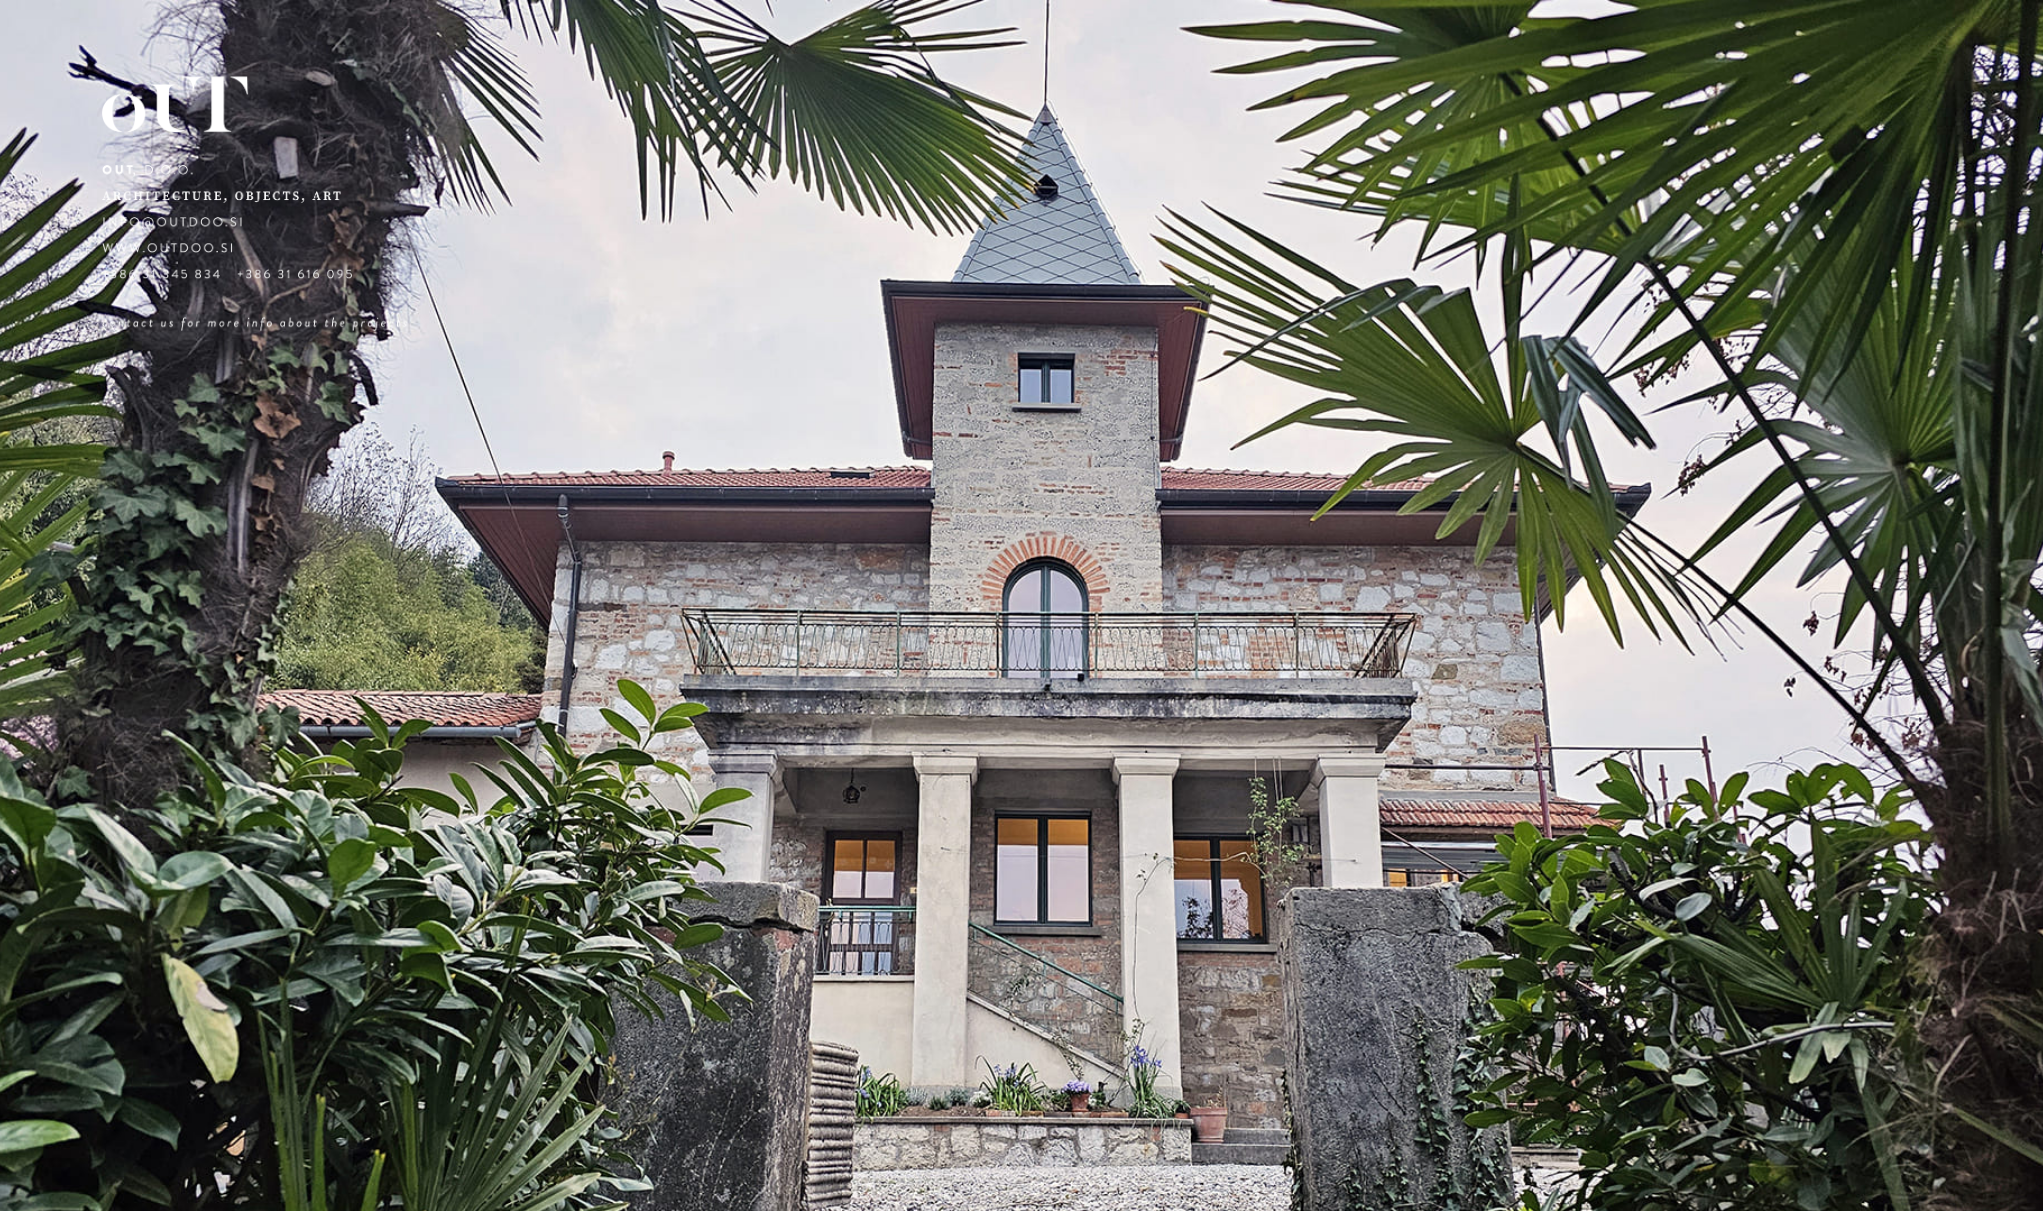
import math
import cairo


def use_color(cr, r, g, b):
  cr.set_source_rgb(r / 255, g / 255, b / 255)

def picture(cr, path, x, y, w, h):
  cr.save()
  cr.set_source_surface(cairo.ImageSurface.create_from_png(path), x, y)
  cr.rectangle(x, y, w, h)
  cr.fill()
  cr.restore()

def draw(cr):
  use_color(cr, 255, 255, 255)
  cr.paint()
  picture(cr, "img_01.png", 0, 0, 2043, 1211)
  picture(cr, "img_02.png", 102, 76, 305, 255)


surface = cairo.ImageSurface(cairo.FORMAT_RGB24, 2043, 1211)
cr = cairo.Context(surface)
options = cairo.FontOptions()
options.set_hint_metrics(cairo.HINT_METRICS_OFF)
options.set_hint_style(cairo.HINT_STYLE_NONE)
cr.set_font_options(options)
cr.set_miter_limit(4)
draw(cr)
surface.write_to_png("out.png")
